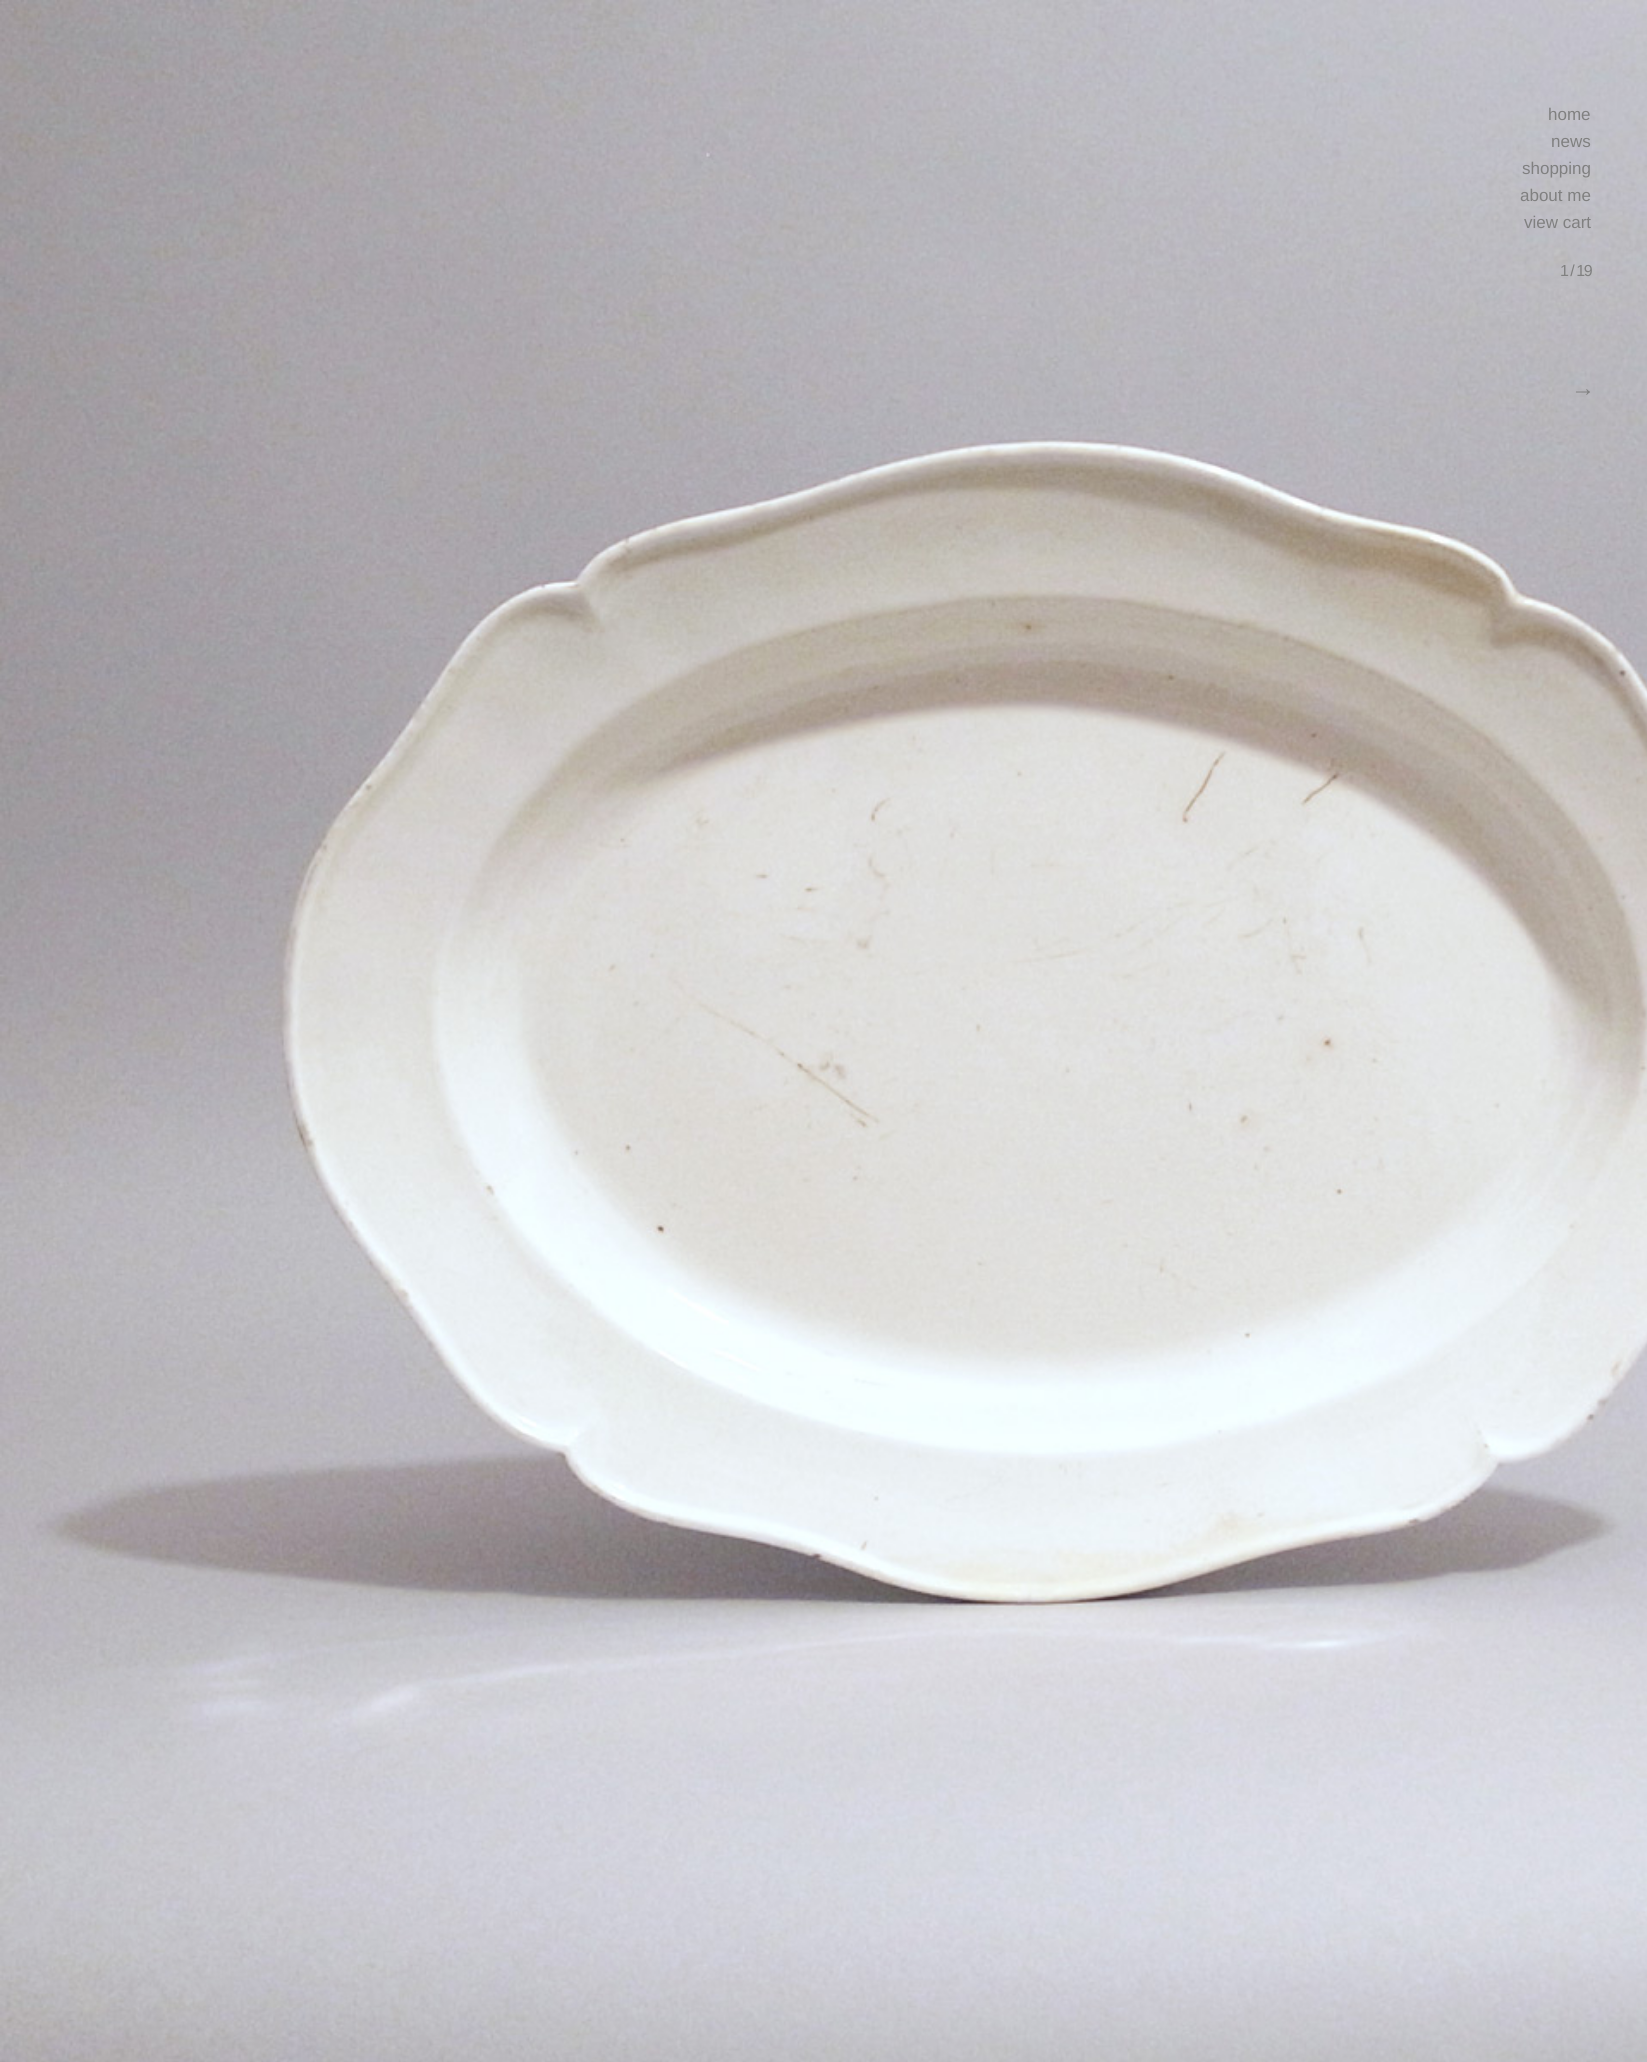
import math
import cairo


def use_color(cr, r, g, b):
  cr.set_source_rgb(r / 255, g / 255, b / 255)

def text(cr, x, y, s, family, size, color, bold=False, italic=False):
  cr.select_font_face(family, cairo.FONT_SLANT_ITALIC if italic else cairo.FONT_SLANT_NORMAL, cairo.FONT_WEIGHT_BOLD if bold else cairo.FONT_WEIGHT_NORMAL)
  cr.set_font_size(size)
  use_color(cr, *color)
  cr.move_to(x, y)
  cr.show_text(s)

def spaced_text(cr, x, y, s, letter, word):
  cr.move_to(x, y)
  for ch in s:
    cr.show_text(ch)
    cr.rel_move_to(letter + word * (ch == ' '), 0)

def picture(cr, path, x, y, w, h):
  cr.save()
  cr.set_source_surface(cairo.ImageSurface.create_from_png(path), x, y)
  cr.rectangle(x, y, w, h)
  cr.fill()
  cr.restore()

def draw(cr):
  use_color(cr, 255, 255, 255)
  cr.paint()
  picture(cr, "img_01.png", 0, 0, 1647, 2062)
  text(cr, 1548, 120, "home", "Liberation Sans", 17, (128, 128, 128))
  text(cr, 1551, 147, "news", "Liberation Sans", 17, (128, 128, 128))
  text(cr, 1522, 174, "shopping", "Liberation Sans", 17, (128, 128, 128))
  text(cr, 1520, 201, "about me", "Liberation Sans", 17, (128, 128, 128))
  text(cr, 1524, 228, "view cart", "Liberation Sans", 17, (128, 128, 128))
  cr.set_font_size(16)
  spaced_text(cr, 1560, 276, "1 / 19", -1.5, 0)
  text(cr, 1571, 396, "→", "Liberation Serif", 24, (128, 128, 128))


surface = cairo.ImageSurface(cairo.FORMAT_RGB24, 1647, 2062)
cr = cairo.Context(surface)
options = cairo.FontOptions()
options.set_hint_metrics(cairo.HINT_METRICS_OFF)
options.set_hint_style(cairo.HINT_STYLE_NONE)
cr.set_font_options(options)
cr.set_miter_limit(4)
draw(cr)
surface.write_to_png("out.png")
